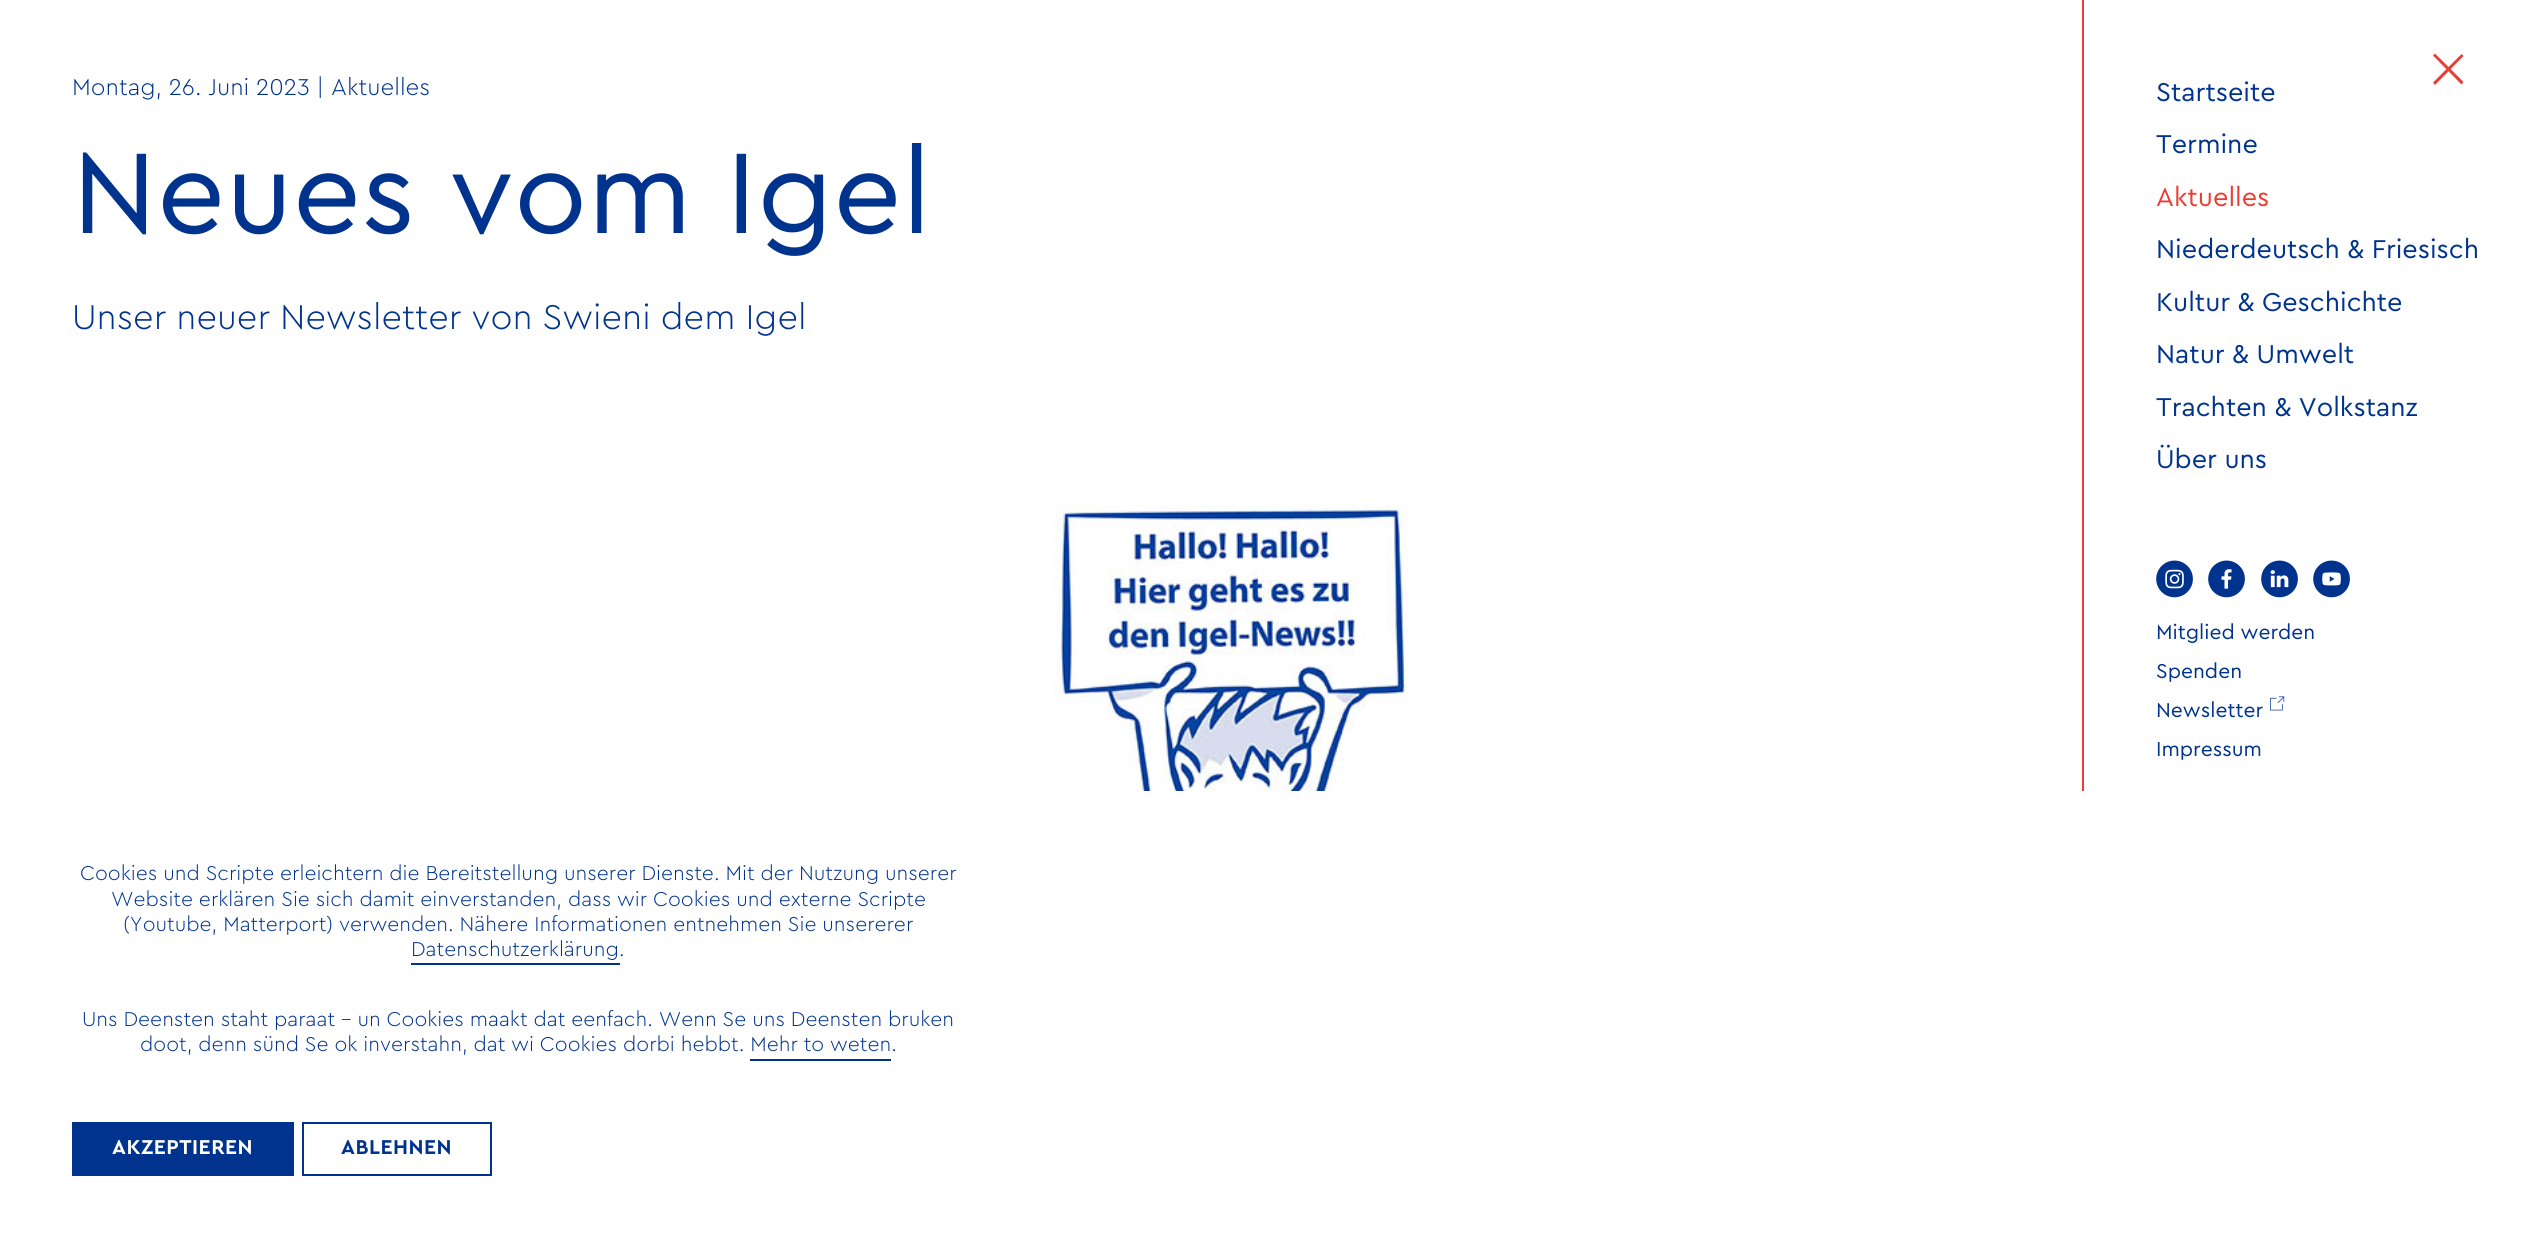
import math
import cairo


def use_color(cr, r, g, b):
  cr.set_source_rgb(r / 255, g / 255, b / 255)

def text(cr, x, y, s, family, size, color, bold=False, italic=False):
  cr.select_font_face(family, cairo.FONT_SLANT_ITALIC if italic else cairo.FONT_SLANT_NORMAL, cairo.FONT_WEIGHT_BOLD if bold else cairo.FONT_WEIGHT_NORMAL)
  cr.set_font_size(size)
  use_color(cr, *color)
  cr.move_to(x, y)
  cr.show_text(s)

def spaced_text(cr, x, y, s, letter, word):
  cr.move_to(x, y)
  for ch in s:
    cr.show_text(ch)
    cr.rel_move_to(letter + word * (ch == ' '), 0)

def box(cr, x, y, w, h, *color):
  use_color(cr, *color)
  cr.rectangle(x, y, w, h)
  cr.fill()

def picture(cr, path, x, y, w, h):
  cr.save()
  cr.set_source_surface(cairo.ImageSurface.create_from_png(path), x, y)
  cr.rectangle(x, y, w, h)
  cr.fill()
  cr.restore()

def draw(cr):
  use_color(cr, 255, 255, 255)
  cr.paint()
  picture(cr, "img_01.png", 1054, 505, 354, 286)
  use_color(cr, 232, 62, 51)
  cr.new_path()
  cr.move_to(2435, 53.5)
  cr.line_to(2463.5, 82)
  cr.line_to(2461.5, 84.5)
  cr.line_to(2433, 55.5)
  cr.close_path()
  cr.fill()
  cr.new_path()
  cr.move_to(2433, 82.5)
  cr.line_to(2461.5, 54)
  cr.line_to(2463.5, 56)
  cr.line_to(2435, 85)
  cr.close_path()
  cr.fill()
  box(cr, 2082, 0, 2, 791, 232, 62, 51)
  picture(cr, "img_02.png", 2270, 696, 15, 15)
  box(cr, 411, 963, 209, 2, 0, 51, 141)
  box(cr, 750, 1059, 141, 2, 0, 51, 141)
  box(cr, 72, 1122, 222, 54, 0, 51, 141)
  cr.rectangle(303, 1123, 188, 52)
  cr.stroke()
  text(cr, 72, 95, "Montag, 26. Juni 2023 | Aktuelles", "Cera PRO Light", 24, (0, 51, 141))
  text(cr, 72, 233, "Neues vom Igel", "Cera PRO", 120, (0, 51, 141))
  text(cr, 72, 329, "Unser neuer Newsletter von Swieni dem Igel", "Cera PRO Light", 36, (0, 51, 141))
  text(cr, 2156, 101, "Startseite", "Cera PRO", 27, (0, 51, 141))
  text(cr, 2156, 153, "Termine", "Cera PRO", 27, (0, 51, 141))
  text(cr, 2156, 206, "Aktuelles", "Cera PRO", 27, (232, 62, 51))
  text(cr, 2156, 258, "Niederdeutsch & Friesisch", "Cera PRO", 27, (0, 51, 141))
  text(cr, 2156, 311, "Kultur & Geschichte", "Cera PRO", 27, (0, 51, 141))
  text(cr, 2156, 363, "Natur & Umwelt", "Cera PRO", 27, (0, 51, 141))
  text(cr, 2156, 416, "Trachten & Volkstanz", "Cera PRO", 27, (0, 51, 141))
  text(cr, 2156, 468, "Über uns", "Cera PRO", 27, (0, 51, 141))
  text(cr, 2156, 591, "l", "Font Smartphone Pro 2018", 38, (0, 51, 141))
  text(cr, 2208, 591, "f", "Font Smartphone Pro 2018", 38, (0, 51, 141))
  text(cr, 2261, 591, "n", "Font Smartphone Pro 2018", 38, (0, 51, 141))
  text(cr, 2313, 591, "y", "Font Smartphone Pro 2018", 38, (0, 51, 141))
  text(cr, 2156, 639, "Mitglied werden", "Cera PRO", 21, (0, 51, 141))
  text(cr, 2156, 678, "Spenden", "Cera PRO", 21, (0, 51, 141))
  text(cr, 2156, 717, "Newsletter", "Cera PRO", 21, (0, 51, 141))
  text(cr, 2156, 756, "Impressum", "Cera PRO", 21, (0, 51, 141))
  text(cr, 80, 880, "Cookies und Scripte erleichtern die Bereitstellung unserer Dienste. Mit der Nutzung unserer", "Cera PRO Light", 21, (0, 51, 141))
  text(cr, 111, 906, "Website erklären Sie sich damit einverstanden, dass wir Cookies und externe Scripte", "Cera PRO Light", 21, (0, 51, 141))
  text(cr, 123, 931, "(Youtube, Matterport) verwenden. Nähere Informationen entnehmen Sie unsererer", "Cera PRO Light", 21, (0, 51, 141))
  text(cr, 411, 956, "Datenschutzerklärung.", "Cera PRO Light", 21, (0, 51, 141))
  text(cr, 82, 1026, "Uns Deensten staht paraat – un Cookies maakt dat eenfach. Wenn Se uns Deensten bruken", "Cera PRO Light", 21, (0, 51, 141))
  text(cr, 140, 1051, "doot, denn sünd Se ok inverstahn, dat wi Cookies dorbi hebbt. Mehr to weten.", "Cera PRO Light", 21, (0, 51, 141))
  cr.select_font_face("Cera PRO", cairo.FONT_SLANT_NORMAL, cairo.FONT_WEIGHT_BOLD)
  use_color(cr, 255, 255, 255)
  spaced_text(cr, 112, 1154, "AKZEPTIEREN", 0.5, 0)
  use_color(cr, 0, 51, 141)
  spaced_text(cr, 341, 1154, "ABLEHNEN", 0.5, 0)


surface = cairo.ImageSurface(cairo.FORMAT_RGB24, 2531, 1260)
cr = cairo.Context(surface)
options = cairo.FontOptions()
options.set_hint_metrics(cairo.HINT_METRICS_OFF)
options.set_hint_style(cairo.HINT_STYLE_NONE)
cr.set_font_options(options)
cr.set_miter_limit(4)
draw(cr)
surface.write_to_png("out.png")
